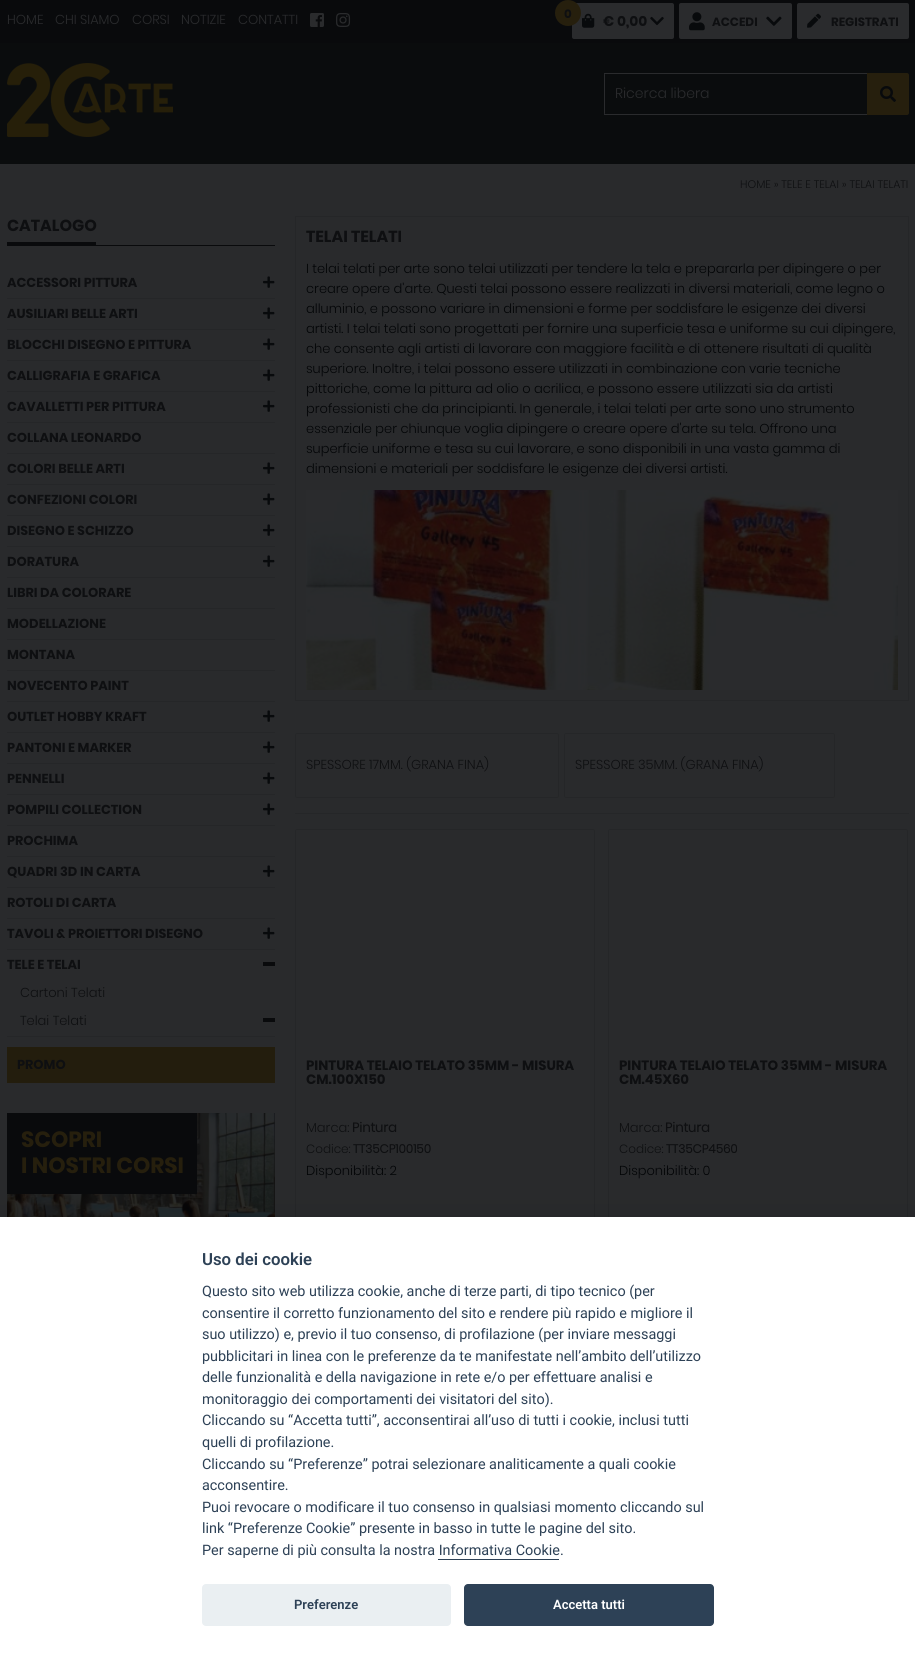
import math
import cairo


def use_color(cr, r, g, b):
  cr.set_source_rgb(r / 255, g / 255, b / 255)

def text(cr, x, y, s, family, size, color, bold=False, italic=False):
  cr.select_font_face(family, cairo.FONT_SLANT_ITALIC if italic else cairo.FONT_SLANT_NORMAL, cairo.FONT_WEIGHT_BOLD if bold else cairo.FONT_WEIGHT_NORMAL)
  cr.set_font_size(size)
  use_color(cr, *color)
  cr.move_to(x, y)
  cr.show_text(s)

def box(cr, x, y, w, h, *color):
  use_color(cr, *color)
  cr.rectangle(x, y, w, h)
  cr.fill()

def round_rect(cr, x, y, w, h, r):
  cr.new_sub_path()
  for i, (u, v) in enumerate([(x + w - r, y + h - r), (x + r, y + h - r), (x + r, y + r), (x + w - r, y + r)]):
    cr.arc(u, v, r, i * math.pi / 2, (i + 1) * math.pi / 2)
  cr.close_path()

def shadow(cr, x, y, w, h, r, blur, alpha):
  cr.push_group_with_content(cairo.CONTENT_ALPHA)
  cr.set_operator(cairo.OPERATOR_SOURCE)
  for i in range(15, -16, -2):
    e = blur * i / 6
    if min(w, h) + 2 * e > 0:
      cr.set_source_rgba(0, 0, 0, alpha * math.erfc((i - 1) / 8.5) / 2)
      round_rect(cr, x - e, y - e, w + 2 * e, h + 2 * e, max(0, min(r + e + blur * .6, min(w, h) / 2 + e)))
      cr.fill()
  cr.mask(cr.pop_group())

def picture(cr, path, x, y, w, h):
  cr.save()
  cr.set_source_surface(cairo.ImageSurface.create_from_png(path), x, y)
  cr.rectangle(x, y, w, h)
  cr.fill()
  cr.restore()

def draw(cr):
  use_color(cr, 41, 42, 44)
  cr.paint()
  box(cr, 0, 43, 915, 121, 10, 12, 13)
  box(cr, 0, 0, 915, 43, 9, 10, 12)
  picture(cr, "img_01.png", 310, 13, 14, 14)
  picture(cr, "img_02.png", 336, 13, 15, 14)
  use_color(cr, 42, 43, 45)
  round_rect(cr, 572, 3, 102, 36, 2)
  cr.fill()
  use_color(cr, 38, 31, 13)
  cr.arc(568, 13, 13, 0, 2 * math.pi)
  cr.fill()
  picture(cr, "img_03.png", 582, 13, 13, 15)
  picture(cr, "img_04.png", 650, 16, 14, 10)
  use_color(cr, 42, 43, 45)
  round_rect(cr, 679, 3, 113, 36, 2)
  cr.fill()
  picture(cr, "img_05.png", 689, 12, 16, 19)
  picture(cr, "img_06.png", 766, 16, 16, 10)
  round_rect(cr, 797, 3, 112, 36, 2)
  cr.fill()
  picture(cr, "img_07.png", 807, 13, 14, 15)
  picture(cr, "img_08.png", 7, 63, 166, 74)
  box(cr, 604, 73, 263, 1, 42, 43, 45)
  box(cr, 604, 114, 263, 1, 42, 43, 45)
  cr.save()
  round_rect(cr, 604, 73, 305, 42, 2)
  cr.clip()
  box(cr, 604, 73, 1, 42, 42, 43, 45)
  cr.restore()
  use_color(cr, 38, 31, 13)
  cr.new_path()
  cr.move_to(867, 73)
  cr.line_to(907, 73)
  cr.curve_to(908, 73, 909, 74, 909, 75)
  cr.line_to(909, 113)
  cr.curve_to(909, 114, 908, 115, 907, 115)
  cr.line_to(867, 115)
  cr.close_path()
  cr.fill()
  picture(cr, "img_09.png", 880, 86, 16, 16)
  box(cr, 7, 245, 268, 1, 9, 10, 12)
  box(cr, 7, 242, 89, 3, 9, 10, 12)
  box(cr, 7, 298, 268, 1, 37, 38, 40)
  picture(cr, "img_10.png", 263, 276, 12, 12)
  box(cr, 7, 329, 268, 1, 37, 38, 40)
  picture(cr, "img_10.png", 263, 307, 12, 12)
  box(cr, 7, 360, 268, 1, 37, 38, 40)
  picture(cr, "img_10.png", 263, 338, 12, 12)
  box(cr, 7, 391, 268, 1, 37, 38, 40)
  picture(cr, "img_10.png", 263, 369, 12, 12)
  box(cr, 7, 422, 268, 1, 37, 38, 40)
  picture(cr, "img_10.png", 263, 400, 12, 12)
  box(cr, 7, 453, 268, 1, 37, 38, 40)
  box(cr, 7, 484, 268, 1, 37, 38, 40)
  picture(cr, "img_10.png", 263, 462, 12, 12)
  box(cr, 7, 515, 268, 1, 37, 38, 40)
  picture(cr, "img_10.png", 263, 493, 12, 12)
  box(cr, 7, 546, 268, 1, 37, 38, 40)
  picture(cr, "img_10.png", 263, 524, 12, 12)
  box(cr, 7, 577, 268, 1, 37, 38, 40)
  picture(cr, "img_10.png", 263, 555, 12, 12)
  box(cr, 7, 608, 268, 1, 37, 38, 40)
  box(cr, 7, 639, 268, 1, 37, 38, 40)
  box(cr, 7, 670, 268, 1, 37, 38, 40)
  box(cr, 7, 701, 268, 1, 37, 38, 40)
  box(cr, 7, 732, 268, 1, 37, 38, 40)
  picture(cr, "img_10.png", 263, 710, 12, 12)
  box(cr, 7, 763, 268, 1, 37, 38, 40)
  picture(cr, "img_10.png", 263, 741, 12, 12)
  box(cr, 7, 794, 268, 1, 37, 38, 40)
  picture(cr, "img_10.png", 263, 772, 12, 12)
  box(cr, 7, 825, 268, 1, 37, 38, 40)
  picture(cr, "img_10.png", 263, 803, 12, 12)
  box(cr, 7, 856, 268, 1, 37, 38, 40)
  box(cr, 7, 887, 268, 1, 37, 38, 40)
  picture(cr, "img_10.png", 263, 865, 12, 12)
  box(cr, 7, 918, 268, 1, 37, 38, 40)
  box(cr, 7, 949, 268, 1, 37, 38, 40)
  picture(cr, "img_10.png", 263, 927, 12, 12)
  box(cr, 7, 1036, 268, 1, 37, 38, 40)
  box(cr, 263, 962, 12, 4, 9, 10, 12)
  box(cr, 263, 1018, 12, 4, 9, 10, 12)
  box(cr, 7, 1047, 268, 36, 35, 29, 13)
  picture(cr, "img_11.png", 7, 1113, 268, 104)
  box(cr, 7, 1113, 190, 81, 9, 10, 12)
  cr.rectangle(295.5, 216.5, 613, 484)
  use_color(cr, 37, 38, 40)
  cr.set_line_width(1)
  cr.stroke()
  picture(cr, "img_12.png", 306, 490, 592, 200)
  round_rect(cr, 295.5, 733.5, 263, 64, 1.5)
  cr.stroke()
  round_rect(cr, 564.5, 733.5, 270, 64, 1.5)
  cr.stroke()
  box(cr, 295, 813, 614, 1, 37, 38, 40)
  round_rect(cr, 295.5, 829.5, 299, 514, 1.5)
  cr.stroke()
  round_rect(cr, 608.5, 829.5, 299, 514, 1.5)
  cr.stroke()
  use_color(cr, 2, 2, 3)
  shadow(cr, 0, 1227, 915, 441, 0, 15, 0.28)
  box(cr, 0, 1217, 915, 441, 255, 255, 255)
  box(cr, 438, 1559, 121, 1, 45, 65, 86)
  use_color(cr, 234, 239, 242)
  round_rect(cr, 202, 1584, 249, 42, 4)
  cr.fill()
  use_color(cr, 45, 65, 86)
  round_rect(cr, 464, 1584, 250, 42, 4)
  cr.fill()
  text(cr, 7, 24, "HOME", "Poppins Light", 13, (42, 43, 45))
  text(cr, 55, 24, "CHI SIAMO", "Poppins Light", 13, (42, 43, 45))
  text(cr, 132, 24, "CORSI", "Poppins Light", 13, (42, 43, 45))
  text(cr, 181, 24, "NOTIZIE", "Poppins Light", 13, (42, 43, 45))
  text(cr, 238, 24, "CONTATTI", "Poppins Light", 13, (42, 43, 45))
  text(cr, 564, 18, "0", "Poppins", 12, (14, 15, 17), bold=True)
  text(cr, 603, 26, "€ 0,00", "Poppins", 14, (14, 15, 17), bold=True)
  text(cr, 712, 26, "ACCEDI", "Poppins", 12, (14, 15, 17), bold=True)
  text(cr, 831, 26, "REGISTRATI", "Poppins", 12, (14, 15, 17), bold=True)
  text(cr, 615, 98, "Ricerca libera", "Poppins Light", 14, (42, 43, 45))
  text(cr, 740, 188, "HOME » TELE E TELAI » TELAI TELATI", "Poppins Light", 11, (14, 15, 17))
  text(cr, 7, 231, "CATALOGO", "Poppins", 16, (14, 15, 17), bold=True)
  text(cr, 7, 287, "ACCESSORI PITTURA", "Poppins", 13, (14, 15, 17), bold=True)
  text(cr, 7, 318, "AUSILIARI BELLE ARTI", "Poppins", 13, (14, 15, 17), bold=True)
  text(cr, 7, 349, "BLOCCHI DISEGNO E PITTURA", "Poppins", 13, (14, 15, 17), bold=True)
  text(cr, 7, 380, "CALLIGRAFIA E GRAFICA", "Poppins", 13, (14, 15, 17), bold=True)
  text(cr, 7, 411, "CAVALLETTI PER PITTURA", "Poppins", 13, (14, 15, 17), bold=True)
  text(cr, 7, 442, "COLLANA LEONARDO", "Poppins", 13, (14, 15, 17), bold=True)
  text(cr, 7, 473, "COLORI BELLE ARTI", "Poppins", 13, (14, 15, 17), bold=True)
  text(cr, 7, 504, "CONFEZIONI COLORI", "Poppins", 13, (14, 15, 17), bold=True)
  text(cr, 7, 535, "DISEGNO E SCHIZZO", "Poppins", 13, (14, 15, 17), bold=True)
  text(cr, 7, 566, "DORATURA", "Poppins", 13, (14, 15, 17), bold=True)
  text(cr, 7, 597, "LIBRI DA COLORARE", "Poppins", 13, (14, 15, 17), bold=True)
  text(cr, 7, 628, "MODELLAZIONE", "Poppins", 13, (14, 15, 17), bold=True)
  text(cr, 7, 659, "MONTANA", "Poppins", 13, (14, 15, 17), bold=True)
  text(cr, 7, 690, "NOVECENTO PAINT", "Poppins", 13, (14, 15, 17), bold=True)
  text(cr, 7, 721, "OUTLET HOBBY KRAFT", "Poppins", 13, (14, 15, 17), bold=True)
  text(cr, 7, 752, "PANTONI E MARKER", "Poppins", 13, (14, 15, 17), bold=True)
  text(cr, 7, 783, "PENNELLI", "Poppins", 13, (14, 15, 17), bold=True)
  text(cr, 7, 814, "POMPILI COLLECTION", "Poppins", 13, (14, 15, 17), bold=True)
  text(cr, 7, 845, "PROCHIMA", "Poppins", 13, (14, 15, 17), bold=True)
  text(cr, 7, 876, "QUADRI 3D IN CARTA", "Poppins", 13, (14, 15, 17), bold=True)
  text(cr, 7, 907, "ROTOLI DI CARTA", "Poppins", 13, (14, 15, 17), bold=True)
  cr.save()
  cr.rectangle(7, 196, 288, 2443)
  cr.clip()
  text(cr, 7, 938, "TAVOLI & PROIETTORI DISEGNO", "Poppins", 13, (14, 15, 17), bold=True)
  text(cr, 7, 969, "TELE E TELAI", "Poppins", 13, (14, 15, 17), bold=True)
  cr.restore()
  text(cr, 20, 997, "Cartoni Telati", "Poppins Light", 13, (14, 15, 17))
  text(cr, 20, 1025, "Telai Telati", "Poppins Light", 13, (14, 15, 17))
  text(cr, 17, 1069, "PROMO", "Poppins", 13, (14, 15, 17), bold=True)
  text(cr, 21, 1147, "SCOPRI", "Poppins", 22, (38, 31, 13), bold=True)
  text(cr, 21, 1173, "I NOSTRI CORSI", "Poppins", 22, (38, 31, 13), bold=True)
  text(cr, 306, 242, "TELAI TELATI", "Poppins", 16, (14, 15, 17), bold=True)
  text(cr, 306, 273, "I telai telati per arte sono telai utilizzati per tendere la tela e prepararla per dipingere o per", "Poppins Light", 13, (3, 5, 7))
  text(cr, 306, 293, "creare opere d'arte. Questi telai possono essere realizzati in diversi materiali, come legno o", "Poppins Light", 13, (3, 5, 7))
  text(cr, 306, 313, "alluminio, e possono variare in dimensioni e forme per soddisfare le esigenze dei diversi", "Poppins Light", 13, (3, 5, 7))
  text(cr, 306, 333, "artisti. I telai telati sono progettati per fornire una superficie tesa e uniforme su cui dipingere,", "Poppins Light", 13, (3, 5, 7))
  text(cr, 306, 353, "che consente agli artisti di lavorare con maggiore facilità e di ottenere risultati di qualità", "Poppins Light", 13, (3, 5, 7))
  text(cr, 306, 373, "superiore. Inoltre, i telai possono essere utilizzati in combinazione con varie tecniche", "Poppins Light", 13, (3, 5, 7))
  text(cr, 306, 393, "pittoriche, come la pittura ad olio o acrilica, e possono essere utilizzati sia da artisti", "Poppins Light", 13, (3, 5, 7))
  text(cr, 306, 413, "professionisti che da principianti. In generale, i telai telati per arte sono uno strumento", "Poppins Light", 13, (3, 5, 7))
  text(cr, 306, 433, "essenziale per chiunque voglia dipingere o creare opere d'arte su tela. Offrono una", "Poppins Light", 13, (3, 5, 7))
  text(cr, 306, 453, "superficie uniforme e tesa su cui lavorare, e sono disponibili in una vasta gamma di", "Poppins Light", 13, (3, 5, 7))
  text(cr, 306, 473, "dimensioni e materiali per soddisfare le esigenze dei diversi artisti.", "Poppins Light", 13, (3, 5, 7))
  text(cr, 306, 769, "SPESSORE 17MM. (GRANA FINA)", "Poppins Light", 13, (14, 15, 17))
  text(cr, 575, 769, "SPESSORE 35MM. (GRANA FINA)", "Poppins Light", 13, (14, 15, 17))
  text(cr, 306, 1070, "PINTURA TELAIO TELATO 35MM - MISURA", "Poppins", 13.5, (14, 15, 17), bold=True)
  text(cr, 306, 1084, "CM.100X150", "Poppins", 13.5, (14, 15, 17), bold=True)
  text(cr, 306, 1132, "Marca:", "Poppins Light", 13, (14, 15, 17))
  text(cr, 352, 1132, "Pintura", "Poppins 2", 13, (14, 15, 17), bold=True)
  text(cr, 306, 1153, "Codice:", "Poppins Light", 12, (14, 15, 17))
  text(cr, 353, 1153, "TT35CP100150", "Poppins 2", 12, (14, 15, 17), bold=True)
  text(cr, 306, 1175, "Disponibilità: 2", "Poppins Light", 13, (3, 5, 7))
  text(cr, 619, 1070, "PINTURA TELAIO TELATO 35MM - MISURA", "Poppins", 13.5, (14, 15, 17), bold=True)
  text(cr, 619, 1084, "CM.45X60", "Poppins", 13.5, (14, 15, 17), bold=True)
  text(cr, 619, 1132, "Marca:", "Poppins Light", 13, (14, 15, 17))
  text(cr, 665, 1132, "Pintura", "Poppins 2", 13, (14, 15, 17), bold=True)
  text(cr, 619, 1153, "Codice:", "Poppins Light", 12, (14, 15, 17))
  text(cr, 666, 1153, "TT35CP4560", "Poppins 2", 12, (14, 15, 17), bold=True)
  text(cr, 619, 1175, "Disponibilità: 0", "Poppins Light", 13, (3, 5, 7))
  text(cr, 202, 1265, "Uso dei cookie", "Roboto SemiBold", 16.75, (45, 65, 86))
  text(cr, 202, 1296, "Questo sito web utilizza cookie, anche di terze parti, di tipo tecnico (per", "Roboto", 14.4, (45, 65, 86))
  text(cr, 202, 1318, "consentire il corretto funzionamento del sito e rendere più rapido e migliore il", "Roboto", 14.4, (45, 65, 86))
  text(cr, 202, 1339, "suo utilizzo) e, previo il tuo consenso, di profilazione (per inviare messaggi", "Roboto", 14.4, (45, 65, 86))
  text(cr, 202, 1361, "pubblicitari in linea con le preferenze da te manifestate nell’ambito dell’utilizzo", "Roboto", 14.4, (45, 65, 86))
  text(cr, 202, 1382, "delle funzionalità e della navigazione in rete e/o per effettuare analisi e", "Roboto", 14.4, (45, 65, 86))
  text(cr, 202, 1404, "monitoraggio dei comportamenti dei visitatori del sito).", "Roboto", 14.4, (45, 65, 86))
  text(cr, 202, 1425, "Cliccando su “Accetta tutti”, acconsentirai all’uso di tutti i cookie, inclusi tutti", "Roboto", 14.4, (45, 65, 86))
  text(cr, 202, 1447, "quelli di profilazione.", "Roboto", 14.4, (45, 65, 86))
  text(cr, 202, 1469, "Cliccando su “Preferenze” potrai selezionare analiticamente a quali cookie", "Roboto", 14.4, (45, 65, 86))
  text(cr, 202, 1490, "acconsentire.", "Roboto", 14.4, (45, 65, 86))
  text(cr, 202, 1512, "Puoi revocare o modificare il tuo consenso in qualsiasi momento cliccando sul", "Roboto", 14.4, (45, 65, 86))
  text(cr, 202, 1533, "link “Preferenze Cookie” presente in basso in tutte le pagine del sito.", "Roboto", 14.4, (45, 65, 86))
  text(cr, 202, 1555, "Per saperne di più consulta la nostra Informativa Cookie.", "Roboto", 14.4, (45, 65, 86))
  text(cr, 294, 1609, "Preferenze", "Roboto SemiBold", 13, (45, 65, 86))
  text(cr, 553, 1609, "Accetta tutti", "Roboto SemiBold", 13, (255, 255, 255))


surface = cairo.ImageSurface(cairo.FORMAT_RGB24, 915, 1658)
cr = cairo.Context(surface)
options = cairo.FontOptions()
options.set_hint_metrics(cairo.HINT_METRICS_OFF)
options.set_hint_style(cairo.HINT_STYLE_NONE)
cr.set_font_options(options)
cr.set_miter_limit(4)
draw(cr)
surface.write_to_png("out.png")
